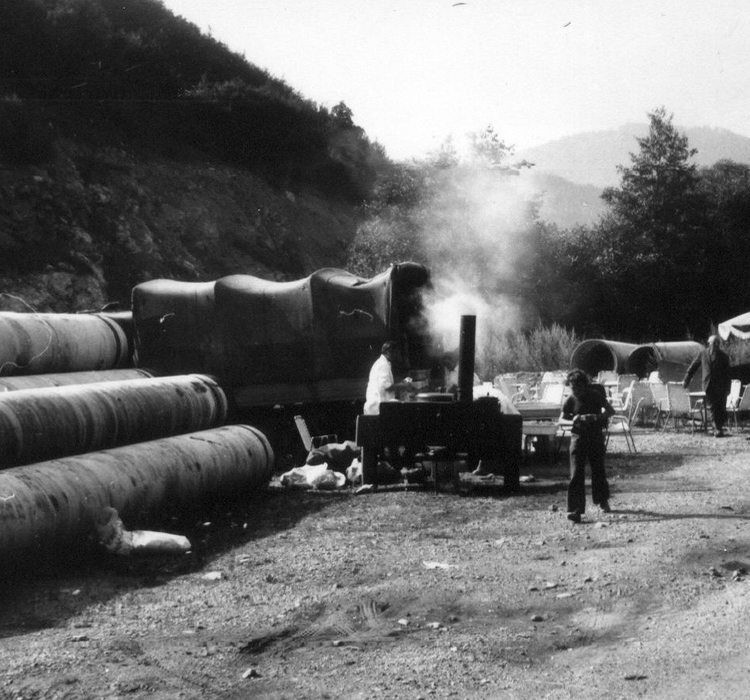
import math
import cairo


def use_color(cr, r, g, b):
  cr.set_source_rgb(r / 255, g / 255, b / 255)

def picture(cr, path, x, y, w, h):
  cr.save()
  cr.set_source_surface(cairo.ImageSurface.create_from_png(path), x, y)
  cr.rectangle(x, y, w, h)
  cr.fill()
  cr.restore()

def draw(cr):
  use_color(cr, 255, 255, 255)
  cr.paint()
  picture(cr, "img_01.png", 0, 0, 750, 700)


surface = cairo.ImageSurface(cairo.FORMAT_RGB24, 750, 700)
cr = cairo.Context(surface)
options = cairo.FontOptions()
options.set_hint_metrics(cairo.HINT_METRICS_OFF)
options.set_hint_style(cairo.HINT_STYLE_NONE)
cr.set_font_options(options)
cr.set_miter_limit(4)
draw(cr)
surface.write_to_png("out.png")
